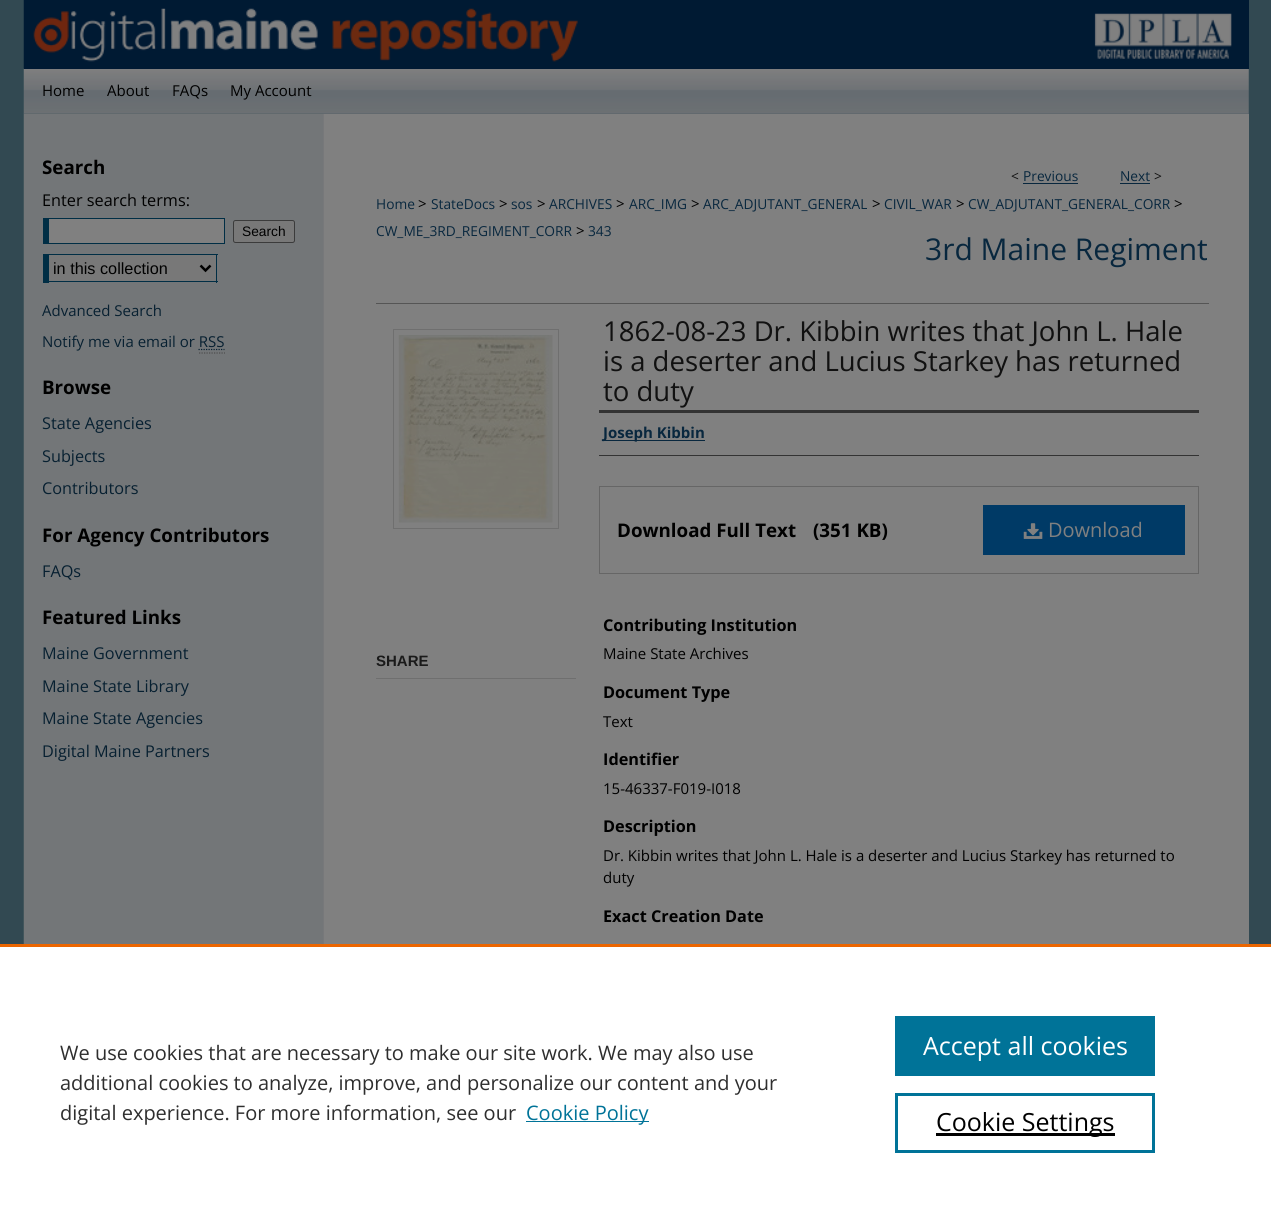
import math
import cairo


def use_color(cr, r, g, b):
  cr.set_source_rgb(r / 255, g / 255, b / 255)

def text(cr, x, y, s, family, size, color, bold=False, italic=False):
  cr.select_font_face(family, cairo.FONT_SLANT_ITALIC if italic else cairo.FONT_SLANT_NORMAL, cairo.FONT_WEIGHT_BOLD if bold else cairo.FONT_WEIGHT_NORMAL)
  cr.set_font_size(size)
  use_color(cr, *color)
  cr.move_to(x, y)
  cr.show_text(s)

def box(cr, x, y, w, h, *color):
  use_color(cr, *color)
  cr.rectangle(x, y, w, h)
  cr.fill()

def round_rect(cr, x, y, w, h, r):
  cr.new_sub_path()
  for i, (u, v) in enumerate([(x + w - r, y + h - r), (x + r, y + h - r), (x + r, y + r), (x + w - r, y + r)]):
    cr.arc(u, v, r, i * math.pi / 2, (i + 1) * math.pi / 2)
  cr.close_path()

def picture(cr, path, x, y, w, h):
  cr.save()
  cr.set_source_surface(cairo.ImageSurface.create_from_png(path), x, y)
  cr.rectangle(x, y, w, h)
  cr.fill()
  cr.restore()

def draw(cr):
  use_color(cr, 50, 73, 82)
  cr.paint()
  picture(cr, "img_04.png", 23, 113, 1226, 831)
  picture(cr, "img_03.png", 23, 68, 1226, 46)
  box(cr, 24, 0, 1225, 69, 0, 26, 51)
  picture(cr, "img_01.png", 23, 0, 1209, 69)
  picture(cr, "img_02.png", 1097, 14, 131, 45)
  box(cr, 49, 219, 175, 24, 128, 128, 128)
  box(cr, 43, 218, 182, 1, 0, 46, 69)
  box(cr, 224, 218, 1, 26, 0, 46, 69)
  box(cr, 43, 243, 182, 1, 0, 46, 69)
  box(cr, 43, 218, 6, 26, 0, 46, 69)
  use_color(cr, 120, 120, 120)
  round_rect(cr, 233.5, 220.5, 61, 22, 2)
  cr.fill_preserve()
  use_color(cr, 59, 59, 59)
  cr.set_line_width(1)
  cr.stroke()
  box(cr, 49, 255, 167, 26, 120, 120, 120)
  box(cr, 43, 254, 175, 1, 0, 46, 69)
  box(cr, 216, 254, 1, 29, 0, 46, 69)
  box(cr, 43, 281, 175, 1, 0, 46, 69)
  box(cr, 43, 254, 6, 29, 0, 46, 69)
  cr.new_path()
  cr.move_to(200.5, 265.5)
  cr.line_to(205.5, 270.5)
  cr.line_to(210.5, 265.5)
  use_color(cr, 0, 0, 0)
  cr.set_line_width(2.5)
  cr.stroke()
  cr.new_path()
  cr.move_to(198.5, 349.5)
  cr.line_to(224.5, 349.5)
  use_color(cr, 7, 32, 49)
  cr.set_line_width(1.2)
  cr.set_dash([1.25, 1.25])
  cr.stroke()
  cr.new_path()
  cr.move_to(199, 353)
  cr.line_to(225, 353)
  use_color(cr, 77, 77, 77)
  cr.stroke()
  box(cr, 1248, 114, 1, 830, 128, 128, 128)
  box(cr, 1023, 183, 55, 1, 8, 39, 62)
  box(cr, 1120, 183, 30, 1, 8, 39, 62)
  cr.rectangle(393.5, 329.5, 165, 199)
  use_color(cr, 111, 111, 111)
  cr.set_line_width(1)
  cr.set_dash([])
  cr.stroke()
  picture(cr, "img_05.png", 398, 335, 155, 188)
  box(cr, 376, 678, 200, 1, 111, 111, 111)
  box(cr, 376, 303, 833, 1, 85, 85, 85)
  box(cr, 599, 410, 600, 3, 51, 51, 51)
  box(cr, 599, 455, 600, 1, 51, 51, 51)
  box(cr, 604, 440, 101, 1, 8, 39, 62)
  cr.rectangle(599.5, 486.5, 599, 87)
  use_color(cr, 102, 102, 102)
  cr.stroke()
  box(cr, 983, 505, 202, 50, 0, 58, 102)
  picture(cr, "img_06.png", 1023, 523, 20, 16)
  box(cr, 0, 947, 1271, 271, 255, 255, 255)
  box(cr, 0, 944, 1271, 3, 235, 101, 0)
  box(cr, 526, 1121, 123, 1, 0, 115, 152)
  box(cr, 895, 1016, 260, 60, 0, 115, 152)
  cr.rectangle(896.5, 1094.5, 257, 57)
  cr.set_line_width(3)
  cr.stroke()
  box(cr, 936, 1133, 179, 3, 0, 0, 0)
  text(cr, 42, 96, "Home", "Open Sans", 15, (0, 0, 0))
  text(cr, 107, 96, "About", "Open Sans", 15, (0, 0, 0))
  text(cr, 172, 96, "FAQs", "Open Sans", 15, (0, 0, 0))
  text(cr, 230, 96, "My Account", "Open Sans", 15, (0, 0, 0))
  text(cr, 42, 174, "Search", "Open Sans", 18.75, (0, 0, 0), bold=True)
  text(cr, 42, 206, "Enter search terms:", "Open Sans", 16.25, (0, 0, 0))
  text(cr, 242, 236, "Search", "Liberation Sans", 13.75, (0, 0, 0))
  text(cr, 53, 274, "in this collection", "Liberation Sans", 16.25, (0, 0, 0))
  text(cr, 42, 316, "Advanced Search", "Open Sans", 15, (7, 32, 49))
  text(cr, 42, 347, "Notify me via email or RSS", "Open Sans", 15, (7, 32, 49))
  text(cr, 42, 394, "Browse", "Open Sans", 18.75, (0, 0, 0), bold=True)
  text(cr, 42, 429, "State Agencies", "Open Sans", 16.25, (7, 32, 49))
  text(cr, 42, 462, "Subjects", "Open Sans", 16.25, (7, 32, 49))
  text(cr, 42, 494, "Contributors", "Open Sans", 16.25, (7, 32, 49))
  text(cr, 42, 542, "For Agency Contributors", "Open Sans", 18.75, (0, 0, 0), bold=True)
  text(cr, 42, 577, "FAQs", "Open Sans", 16.25, (7, 32, 49))
  text(cr, 42, 624, "Featured Links", "Open Sans", 18.75, (0, 0, 0), bold=True)
  text(cr, 42, 659, "Maine Government", "Open Sans", 16.25, (7, 32, 49))
  text(cr, 42, 692, "Maine State Library", "Open Sans", 16.25, (7, 32, 49))
  text(cr, 42, 724, "Maine State Agencies", "Open Sans", 16.25, (7, 32, 49))
  text(cr, 42, 757, "Digital Maine Partners", "Open Sans", 16.25, (7, 32, 49))
  text(cr, 1011, 181, "<", "Open Sans", 13.75, (17, 17, 17))
  text(cr, 1023, 181, "Previous", "Open Sans", 13.75, (8, 39, 62))
  text(cr, 1120, 181, "Next", "Open Sans", 13.75, (8, 39, 62))
  text(cr, 1154, 181, ">", "Open Sans", 13.75, (17, 17, 17))
  text(cr, 376, 209, "Home", "Open Sans", 13.75, (8, 39, 62))
  text(cr, 418, 209, ">", "Open Sans", 15, (0, 0, 0))
  text(cr, 431, 209, "StateDocs", "Open Sans", 13.75, (8, 39, 62))
  text(cr, 499, 209, ">", "Open Sans", 15, (0, 0, 0))
  text(cr, 511, 209, "sos", "Open Sans", 13.75, (8, 39, 62))
  text(cr, 537, 209, ">", "Open Sans", 15, (0, 0, 0))
  text(cr, 549, 209, "ARCHIVES", "Open Sans", 13.75, (8, 39, 62))
  text(cr, 616, 209, ">", "Open Sans", 15, (0, 0, 0))
  text(cr, 629, 209, "ARC_IMG", "Open Sans", 13.75, (8, 39, 62))
  text(cr, 691, 209, ">", "Open Sans", 15, (0, 0, 0))
  text(cr, 703, 209, "ARC_ADJUTANT_GENERAL", "Open Sans", 13.75, (8, 39, 62))
  text(cr, 872, 209, ">", "Open Sans", 15, (0, 0, 0))
  text(cr, 884, 209, "CIVIL_WAR", "Open Sans", 13.75, (8, 39, 62))
  text(cr, 956, 209, ">", "Open Sans", 15, (0, 0, 0))
  text(cr, 968, 209, "CW_ADJUTANT_GENERAL_CORR", "Open Sans", 13.75, (8, 39, 62))
  text(cr, 1174, 209, ">", "Open Sans", 15, (0, 0, 0))
  text(cr, 376, 236, "CW_ME_3RD_REGIMENT_CORR", "Open Sans", 13.75, (8, 39, 62))
  text(cr, 576, 236, ">", "Open Sans", 15, (0, 0, 0))
  text(cr, 588, 236, "343", "Open Sans", 13.75, (8, 39, 62))
  text(cr, 925, 260, "3rd Maine Regiment", "Open Sans", 30, (8, 39, 62))
  text(cr, 376, 666, "SHARE", "Liberation Sans", 15, (26, 26, 26), bold=True)
  text(cr, 603, 341, "1862-08-23 Dr. Kibbin writes that John L. Hale", "Open Sans", 27.5, (17, 17, 17))
  text(cr, 603, 371, "is a deserter and Lucius Starkey has returned", "Open Sans", 27.5, (17, 17, 17))
  text(cr, 603, 401, "to duty", "Open Sans", 27.5, (17, 17, 17))
  text(cr, 603, 438, "Joseph Kibbin", "Open Sans", 15, (8, 39, 62), bold=True)
  text(cr, 617, 537, "Download Full Text", "Open Sans", 18.75, (0, 0, 0), bold=True)
  text(cr, 813, 537, "(351 KB)", "Open Sans", 18.75, (0, 0, 0), bold=True)
  text(cr, 1048, 537, "Download", "Open Sans", 20, (128, 128, 128))
  text(cr, 603, 631, "Contributing Institution", "Open Sans", 16.25, (0, 0, 0), bold=True)
  text(cr, 603, 659, "Maine State Archives", "Open Sans", 15, (0, 0, 0))
  text(cr, 603, 698, "Document Type", "Open Sans", 16.25, (0, 0, 0), bold=True)
  text(cr, 603, 727, "Text", "Open Sans", 15, (0, 0, 0))
  text(cr, 603, 765, "Identifier", "Open Sans", 16.25, (0, 0, 0), bold=True)
  text(cr, 603, 794, "15-46337-F019-I018", "Open Sans", 15, (0, 0, 0))
  text(cr, 603, 832, "Description", "Open Sans", 16.25, (0, 0, 0), bold=True)
  text(cr, 603, 861, "Dr. Kibbin writes that John L. Hale is a deserter and Lucius Starkey has returned to", "Open Sans", 15, (0, 0, 0))
  text(cr, 603, 883, "duty", "Open Sans", 15, (0, 0, 0))
  text(cr, 603, 922, "Exact Creation Date", "Open Sans", 16.25, (0, 0, 0), bold=True)
  text(cr, 60, 1060, "We use cookies that are necessary to make our site work. We may also use", "Open Sans", 20, (46, 46, 46))
  text(cr, 60, 1090, "additional cookies to analyze, improve, and personalize our content and your", "Open Sans", 20, (46, 46, 46))
  text(cr, 60, 1120, "digital experience. For more information, see our", "Open Sans", 20, (46, 46, 46))
  text(cr, 526, 1120, "Cookie Policy", "Open Sans", 20, (0, 115, 152))
  text(cr, 923, 1055, "Accept all cookies", "Open Sans", 25, (255, 255, 255))
  text(cr, 936, 1131, "Cookie Settings", "Open Sans", 25, (0, 0, 0))


surface = cairo.ImageSurface(cairo.FORMAT_RGB24, 1271, 1218)
cr = cairo.Context(surface)
options = cairo.FontOptions()
options.set_hint_metrics(cairo.HINT_METRICS_OFF)
options.set_hint_style(cairo.HINT_STYLE_NONE)
cr.set_font_options(options)
cr.set_miter_limit(4)
draw(cr)
surface.write_to_png("out.png")
